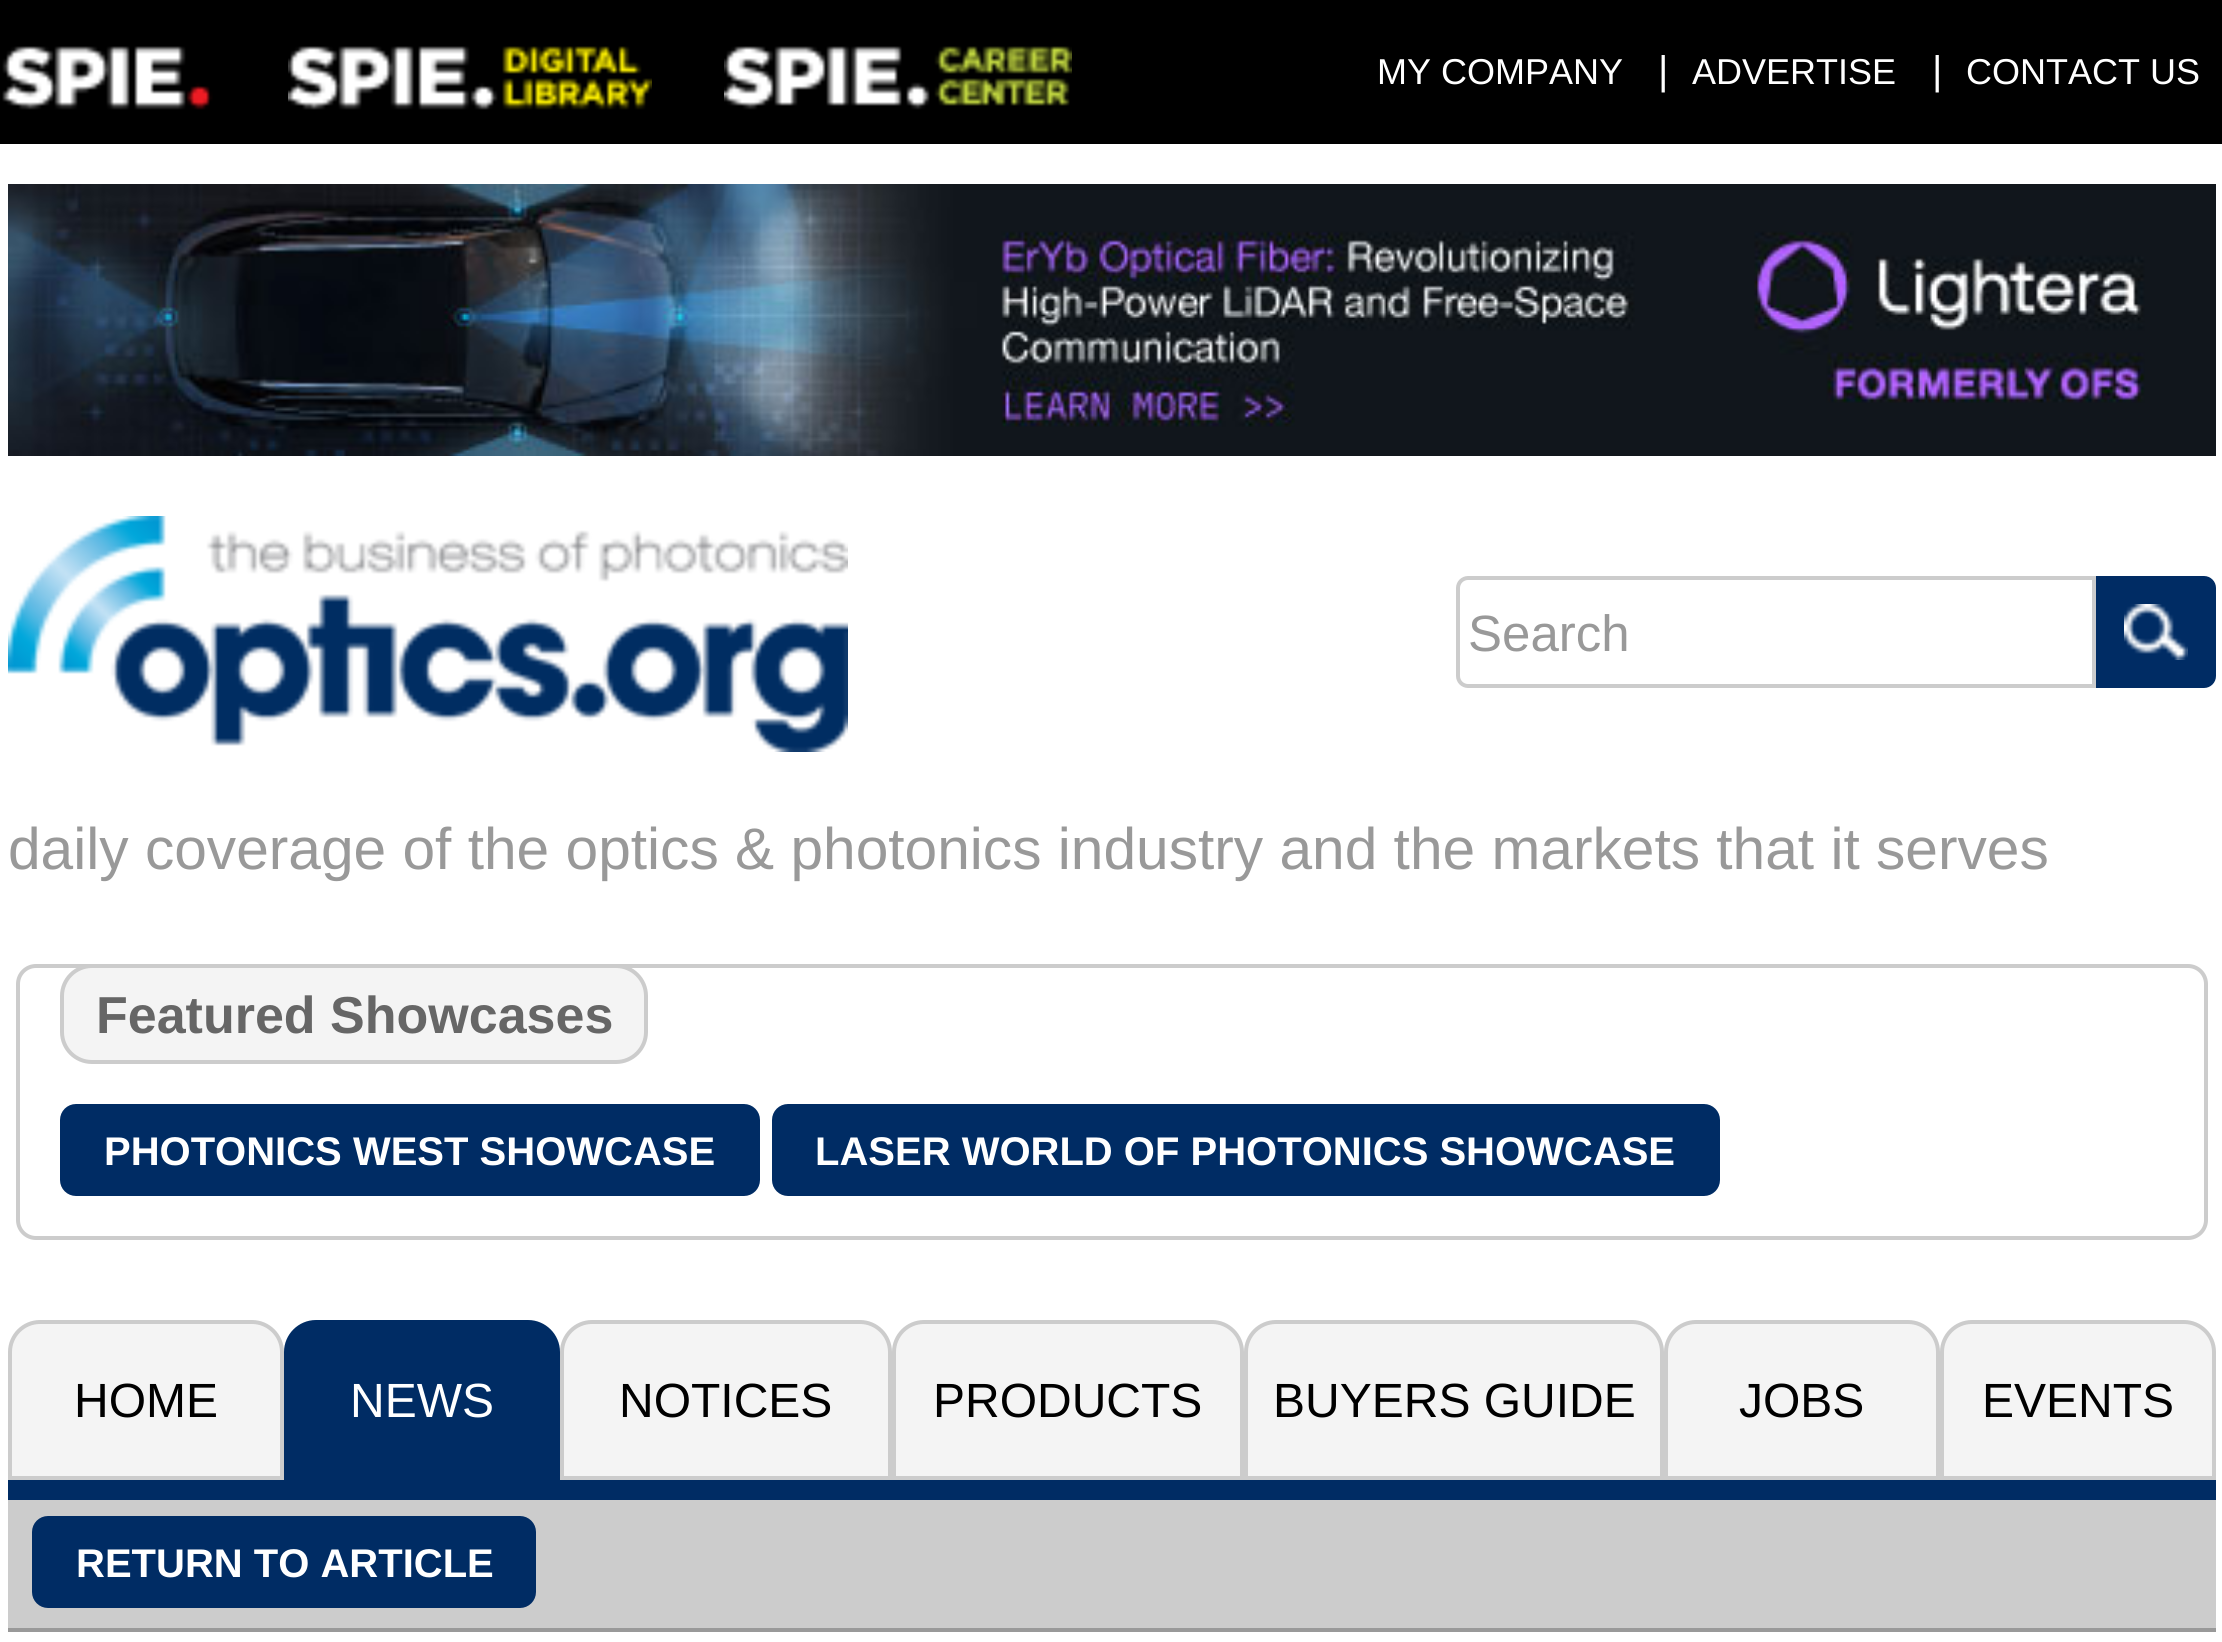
import math
import cairo


def use_color(cr, r, g, b):
  cr.set_source_rgb(r / 255, g / 255, b / 255)

def text(cr, x, y, s, family, size, color, bold=False, italic=False):
  cr.select_font_face(family, cairo.FONT_SLANT_ITALIC if italic else cairo.FONT_SLANT_NORMAL, cairo.FONT_WEIGHT_BOLD if bold else cairo.FONT_WEIGHT_NORMAL)
  cr.set_font_size(size)
  use_color(cr, *color)
  cr.move_to(x, y)
  cr.show_text(s)

def box(cr, x, y, w, h, *color):
  use_color(cr, *color)
  cr.rectangle(x, y, w, h)
  cr.fill()

def round_rect(cr, x, y, w, h, r):
  cr.new_sub_path()
  for i, (u, v) in enumerate([(x + w - r, y + h - r), (x + r, y + h - r), (x + r, y + r), (x + w - r, y + r)]):
    cr.arc(u, v, r, i * math.pi / 2, (i + 1) * math.pi / 2)
  cr.close_path()

def picture(cr, path, x, y, w, h):
  cr.save()
  cr.set_source_surface(cairo.ImageSurface.create_from_png(path), x, y)
  cr.rectangle(x, y, w, h)
  cr.fill()
  cr.restore()

def draw(cr):
  use_color(cr, 255, 255, 255)
  cr.paint()
  box(cr, 0, 0, 2222, 144, 0, 0, 0)
  picture(cr, "img_01.png", 2, 46, 211, 64)
  picture(cr, "img_02.png", 288, 46, 364, 64)
  picture(cr, "img_03.png", 724, 46, 348, 64)
  picture(cr, "img_04.png", 8, 184, 2208, 272)
  picture(cr, "img_05.png", 8, 516, 840, 236)
  cr.new_path()
  cr.move_to(1468, 578)
  cr.line_to(2094, 578)
  cr.line_to(2094, 686)
  cr.line_to(1468, 686)
  cr.curve_to(1462.5, 686, 1458, 681.5, 1458, 676)
  cr.line_to(1458, 588)
  cr.curve_to(1458, 582.5, 1462.5, 578, 1468, 578)
  cr.close_path()
  use_color(cr, 204, 204, 204)
  cr.set_line_width(4)
  cr.stroke()
  cr.new_path()
  cr.move_to(2098, 578)
  cr.line_to(2204, 578)
  cr.curve_to(2209.5, 578, 2214, 582.5, 2214, 588)
  cr.line_to(2214, 676)
  cr.curve_to(2214, 681.5, 2209.5, 686, 2204, 686)
  cr.line_to(2098, 686)
  cr.close_path()
  use_color(cr, 0, 44, 100)
  cr.stroke()
  box(cr, 2100, 580, 112, 104, 0, 44, 100)
  picture(cr, "img_06.png", 2124, 604, 64, 56)
  round_rect(cr, 18, 966, 2188, 272, 18)
  use_color(cr, 204, 204, 204)
  cr.stroke()
  use_color(cr, 244, 244, 244)
  round_rect(cr, 62, 966, 584, 96, 30)
  cr.fill_preserve()
  use_color(cr, 204, 204, 204)
  cr.stroke()
  use_color(cr, 0, 44, 100)
  round_rect(cr, 62, 1106, 696, 88, 14)
  cr.fill_preserve()
  cr.stroke()
  round_rect(cr, 774, 1106, 944, 88, 14)
  cr.fill_preserve()
  cr.stroke()
  box(cr, 8, 1480, 2208, 20, 0, 44, 100)
  use_color(cr, 244, 244, 244)
  cr.new_path()
  cr.move_to(40, 1322)
  cr.line_to(252, 1322)
  cr.curve_to(268.5, 1322, 282, 1335.5, 282, 1352)
  cr.line_to(282, 1478)
  cr.line_to(10, 1478)
  cr.line_to(10, 1352)
  cr.curve_to(10, 1335.5, 23.5, 1322, 40, 1322)
  cr.close_path()
  cr.fill_preserve()
  use_color(cr, 204, 204, 204)
  cr.stroke()
  use_color(cr, 0, 44, 100)
  cr.new_path()
  cr.move_to(316, 1322)
  cr.line_to(528, 1322)
  cr.curve_to(544.5, 1322, 558, 1335.5, 558, 1352)
  cr.line_to(558, 1478)
  cr.line_to(286, 1478)
  cr.line_to(286, 1352)
  cr.curve_to(286, 1335.5, 299.5, 1322, 316, 1322)
  cr.close_path()
  cr.fill_preserve()
  cr.stroke()
  use_color(cr, 244, 244, 244)
  cr.new_path()
  cr.move_to(592, 1322)
  cr.line_to(860, 1322)
  cr.curve_to(876.5, 1322, 890, 1335.5, 890, 1352)
  cr.line_to(890, 1478)
  cr.line_to(562, 1478)
  cr.line_to(562, 1352)
  cr.curve_to(562, 1335.5, 575.5, 1322, 592, 1322)
  cr.close_path()
  cr.fill_preserve()
  use_color(cr, 204, 204, 204)
  cr.stroke()
  use_color(cr, 244, 244, 244)
  cr.new_path()
  cr.move_to(924, 1322)
  cr.line_to(1212, 1322)
  cr.curve_to(1228.5, 1322, 1242, 1335.5, 1242, 1352)
  cr.line_to(1242, 1478)
  cr.line_to(894, 1478)
  cr.line_to(894, 1352)
  cr.curve_to(894, 1335.5, 907.5, 1322, 924, 1322)
  cr.close_path()
  cr.fill_preserve()
  use_color(cr, 204, 204, 204)
  cr.stroke()
  use_color(cr, 244, 244, 244)
  cr.new_path()
  cr.move_to(1276, 1322)
  cr.line_to(1632, 1322)
  cr.curve_to(1648.5, 1322, 1662, 1335.5, 1662, 1352)
  cr.line_to(1662, 1478)
  cr.line_to(1246, 1478)
  cr.line_to(1246, 1352)
  cr.curve_to(1246, 1335.5, 1259.5, 1322, 1276, 1322)
  cr.close_path()
  cr.fill_preserve()
  use_color(cr, 204, 204, 204)
  cr.stroke()
  use_color(cr, 244, 244, 244)
  cr.new_path()
  cr.move_to(1696, 1322)
  cr.line_to(1908, 1322)
  cr.curve_to(1924.5, 1322, 1938, 1335.5, 1938, 1352)
  cr.line_to(1938, 1478)
  cr.line_to(1666, 1478)
  cr.line_to(1666, 1352)
  cr.curve_to(1666, 1335.5, 1679.5, 1322, 1696, 1322)
  cr.close_path()
  cr.fill_preserve()
  use_color(cr, 204, 204, 204)
  cr.stroke()
  use_color(cr, 244, 244, 244)
  cr.new_path()
  cr.move_to(1972, 1322)
  cr.line_to(2184, 1322)
  cr.curve_to(2200.5, 1322, 2214, 1335.5, 2214, 1352)
  cr.line_to(2214, 1478)
  cr.line_to(1942, 1478)
  cr.line_to(1942, 1352)
  cr.curve_to(1942, 1335.5, 1955.5, 1322, 1972, 1322)
  cr.close_path()
  cr.fill_preserve()
  use_color(cr, 204, 204, 204)
  cr.stroke()
  box(cr, 8, 1500, 2208, 128, 204, 204, 204)
  box(cr, 8, 1628, 2208, 4, 153, 153, 153)
  use_color(cr, 0, 44, 100)
  round_rect(cr, 34, 1518, 500, 88, 14)
  cr.fill_preserve()
  cr.stroke()
  text(cr, 1377, 84, "MY COMPANY", "Liberation Sans", 36, (255, 255, 255))
  text(cr, 1658, 84, "|", "Liberation Sans", 40, (255, 255, 255))
  text(cr, 1692, 84, "ADVERTISE", "Liberation Sans", 36, (255, 255, 255))
  text(cr, 1932, 84, "|", "Liberation Sans", 40, (255, 255, 255))
  text(cr, 1966, 84, "CONTACT US", "Liberation Sans", 36, (255, 255, 255))
  text(cr, 1468, 651, "Search", "Liberation Sans", 51, (153, 153, 153))
  text(cr, 8, 869, "daily coverage of the optics & photonics industry and the markets that it serves", "Liberation Sans", 58.65, (153, 153, 153))
  text(cr, 96, 1033, "Featured Showcases", "Liberation Sans", 52, (102, 102, 102), bold=True)
  text(cr, 104, 1165, "PHOTONICS WEST SHOWCASE", "Liberation Sans", 40, (255, 255, 255), bold=True)
  text(cr, 815, 1165, "LASER WORLD OF PHOTONICS SHOWCASE", "Liberation Sans", 40, (255, 255, 255), bold=True)
  text(cr, 74, 1417, "HOME", "Liberation Sans", 48, (0, 0, 0))
  text(cr, 350, 1417, "NEWS", "Liberation Sans", 48, (255, 255, 255))
  text(cr, 619, 1417, "NOTICES", "Liberation Sans", 48, (0, 0, 0))
  text(cr, 933, 1417, "PRODUCTS", "Liberation Sans", 48, (0, 0, 0))
  text(cr, 1273, 1417, "BUYERS GUIDE", "Liberation Sans", 48, (0, 0, 0))
  text(cr, 1739, 1417, "JOBS", "Liberation Sans", 48, (0, 0, 0))
  text(cr, 1982, 1417, "EVENTS", "Liberation Sans", 48, (0, 0, 0))
  text(cr, 76, 1577, "RETURN TO ARTICLE", "Liberation Sans", 40, (255, 255, 255), bold=True)


surface = cairo.ImageSurface(cairo.FORMAT_RGB24, 2222, 1642)
cr = cairo.Context(surface)
options = cairo.FontOptions()
options.set_hint_metrics(cairo.HINT_METRICS_OFF)
options.set_hint_style(cairo.HINT_STYLE_NONE)
cr.set_font_options(options)
cr.set_miter_limit(4)
draw(cr)
surface.write_to_png("out.png")
